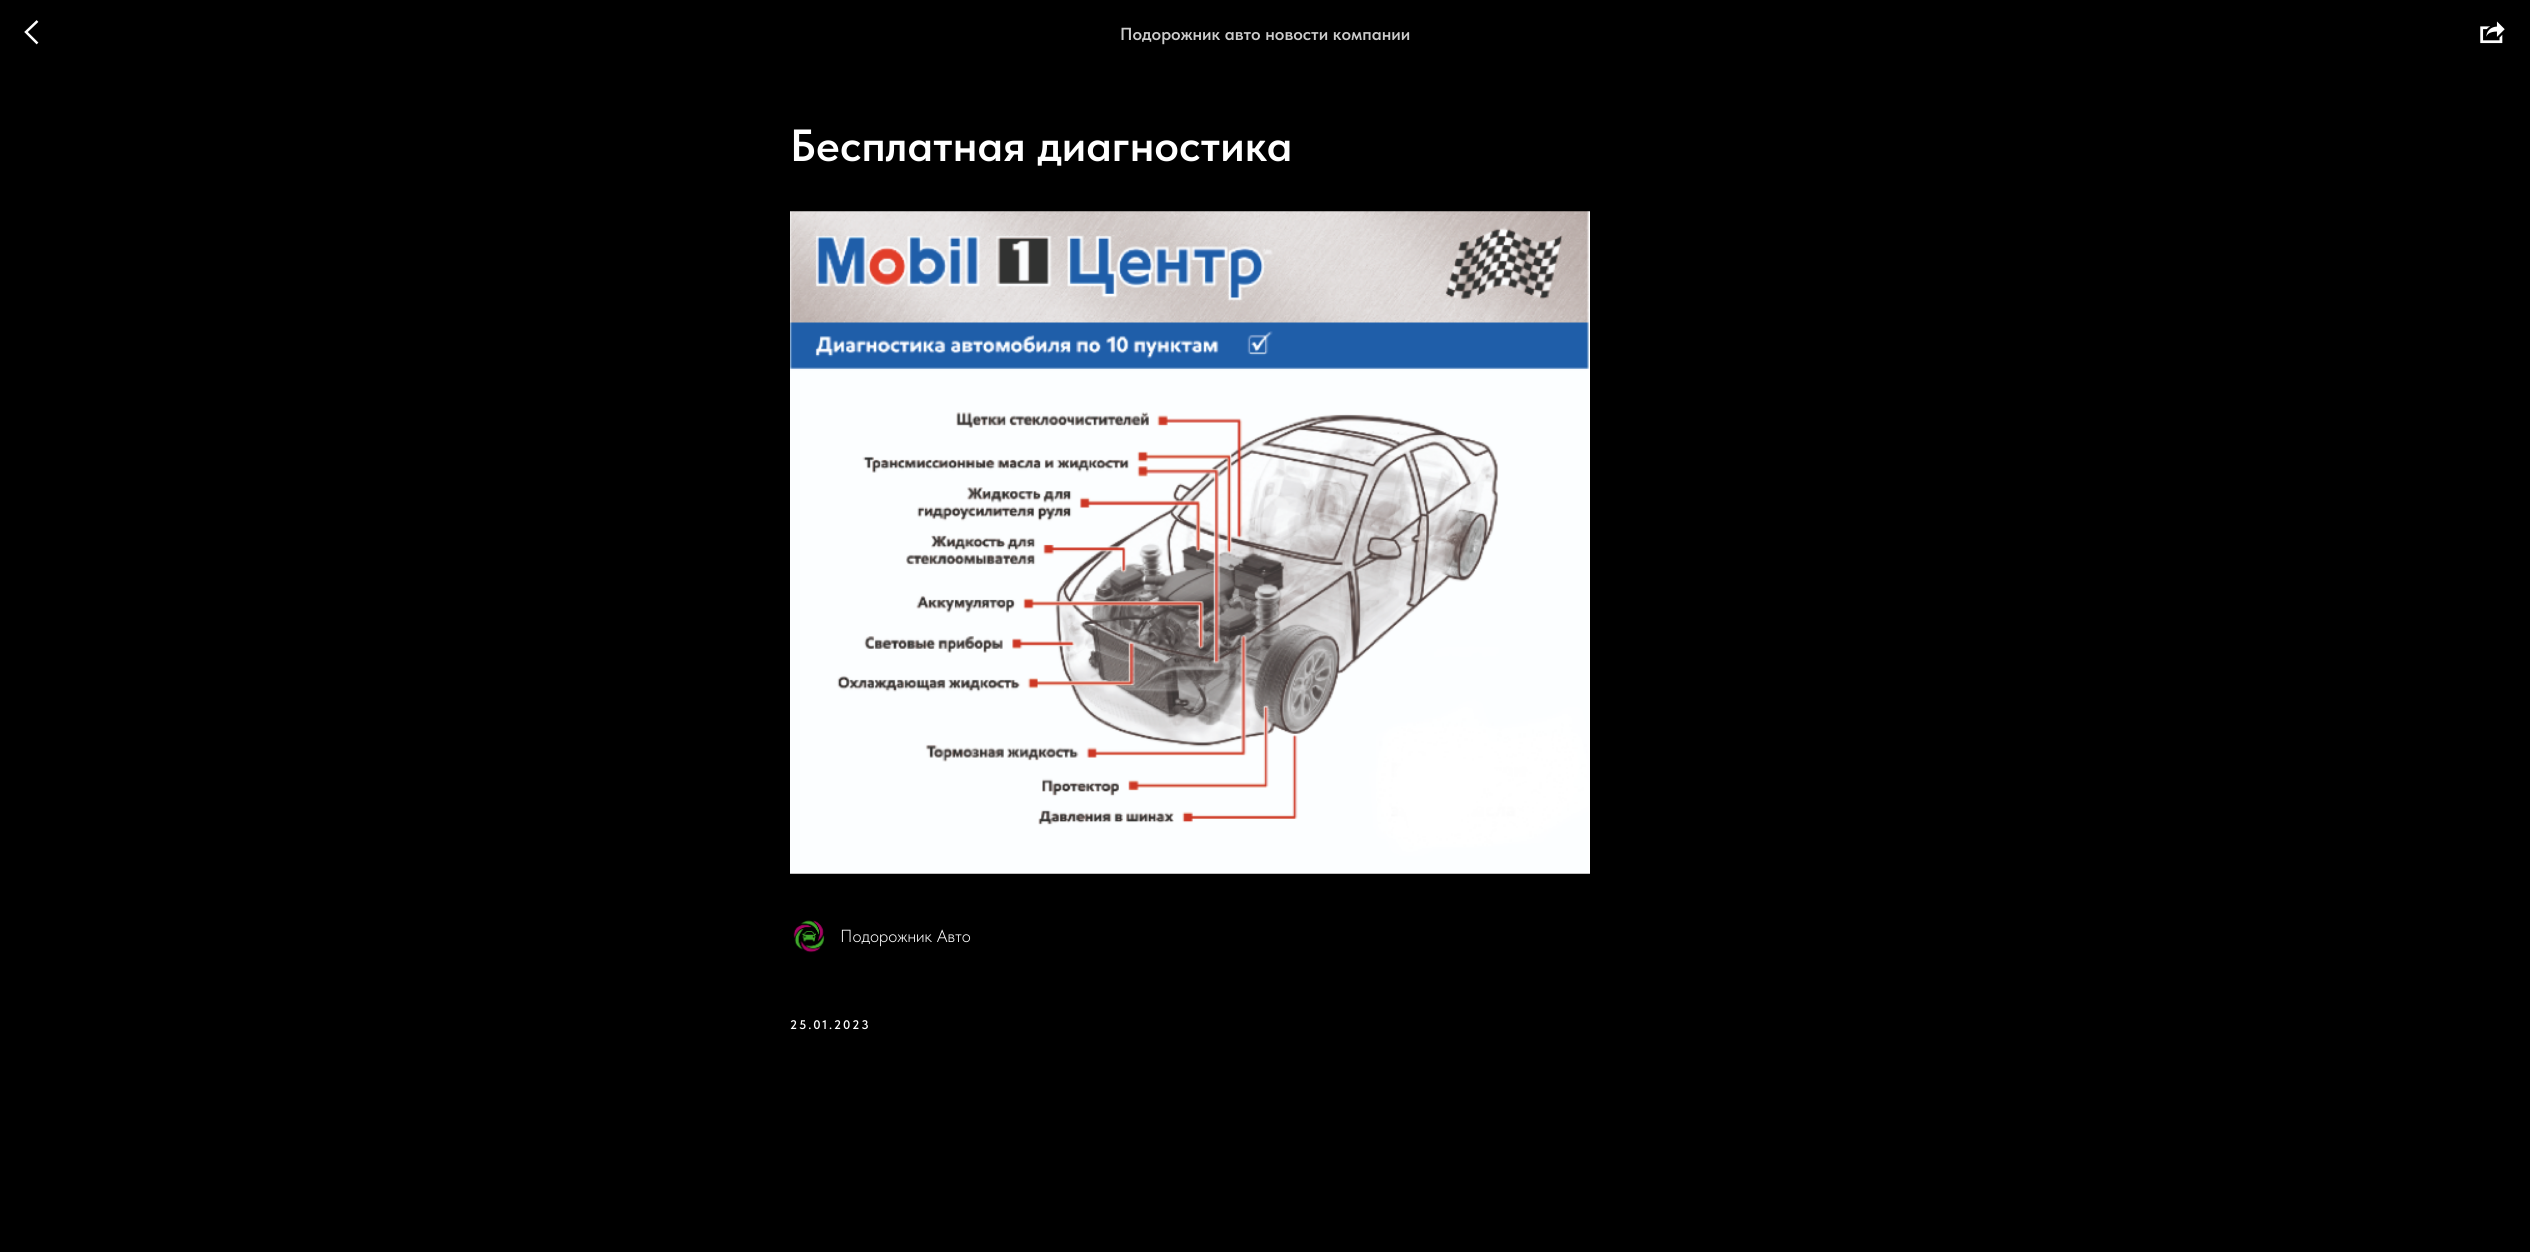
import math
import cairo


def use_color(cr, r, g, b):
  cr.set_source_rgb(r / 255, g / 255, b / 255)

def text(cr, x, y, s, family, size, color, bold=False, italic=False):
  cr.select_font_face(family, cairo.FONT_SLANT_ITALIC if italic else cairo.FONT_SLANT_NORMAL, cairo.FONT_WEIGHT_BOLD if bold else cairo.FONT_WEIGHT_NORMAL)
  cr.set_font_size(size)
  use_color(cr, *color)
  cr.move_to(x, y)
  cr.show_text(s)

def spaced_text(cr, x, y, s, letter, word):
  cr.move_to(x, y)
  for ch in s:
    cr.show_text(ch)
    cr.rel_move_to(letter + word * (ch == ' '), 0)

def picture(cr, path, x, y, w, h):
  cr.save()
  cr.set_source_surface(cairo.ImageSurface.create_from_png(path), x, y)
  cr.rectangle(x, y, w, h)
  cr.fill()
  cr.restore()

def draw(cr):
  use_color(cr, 0, 0, 0)
  cr.paint()
  cr.new_path()
  cr.move_to(37.5, 43.5)
  cr.line_to(26, 32)
  cr.line_to(37.5, 21)
  use_color(cr, 255, 255, 255)
  cr.set_line_width(2.5)
  cr.stroke()
  picture(cr, "img_01.png", 2480, 21, 25, 23)
  picture(cr, "img_02.png", 790, 211, 800, 663)
  picture(cr, "img_03.png", 793, 920, 32, 33)
  text(cr, 1120, 40, "Подорожник авто новости компании", "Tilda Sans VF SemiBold", 17.5, (204, 204, 204))
  text(cr, 790, 161, "Бесплатная диагностика", "Tilda Sans VF SemiBold", 45, (255, 255, 255))
  text(cr, 840, 942, "Подорожник Авто", "Tilda Sans VF Light", 17.5, (255, 255, 255))
  cr.select_font_face("Tilda Sans VF SemiBold")
  cr.set_font_size(12.5)
  spaced_text(cr, 790, 1029, "25.01.2023", 1.9, 0)


surface = cairo.ImageSurface(cairo.FORMAT_RGB24, 2530, 1252)
cr = cairo.Context(surface)
options = cairo.FontOptions()
options.set_hint_metrics(cairo.HINT_METRICS_OFF)
options.set_hint_style(cairo.HINT_STYLE_NONE)
cr.set_font_options(options)
cr.set_miter_limit(4)
draw(cr)
surface.write_to_png("out.png")
